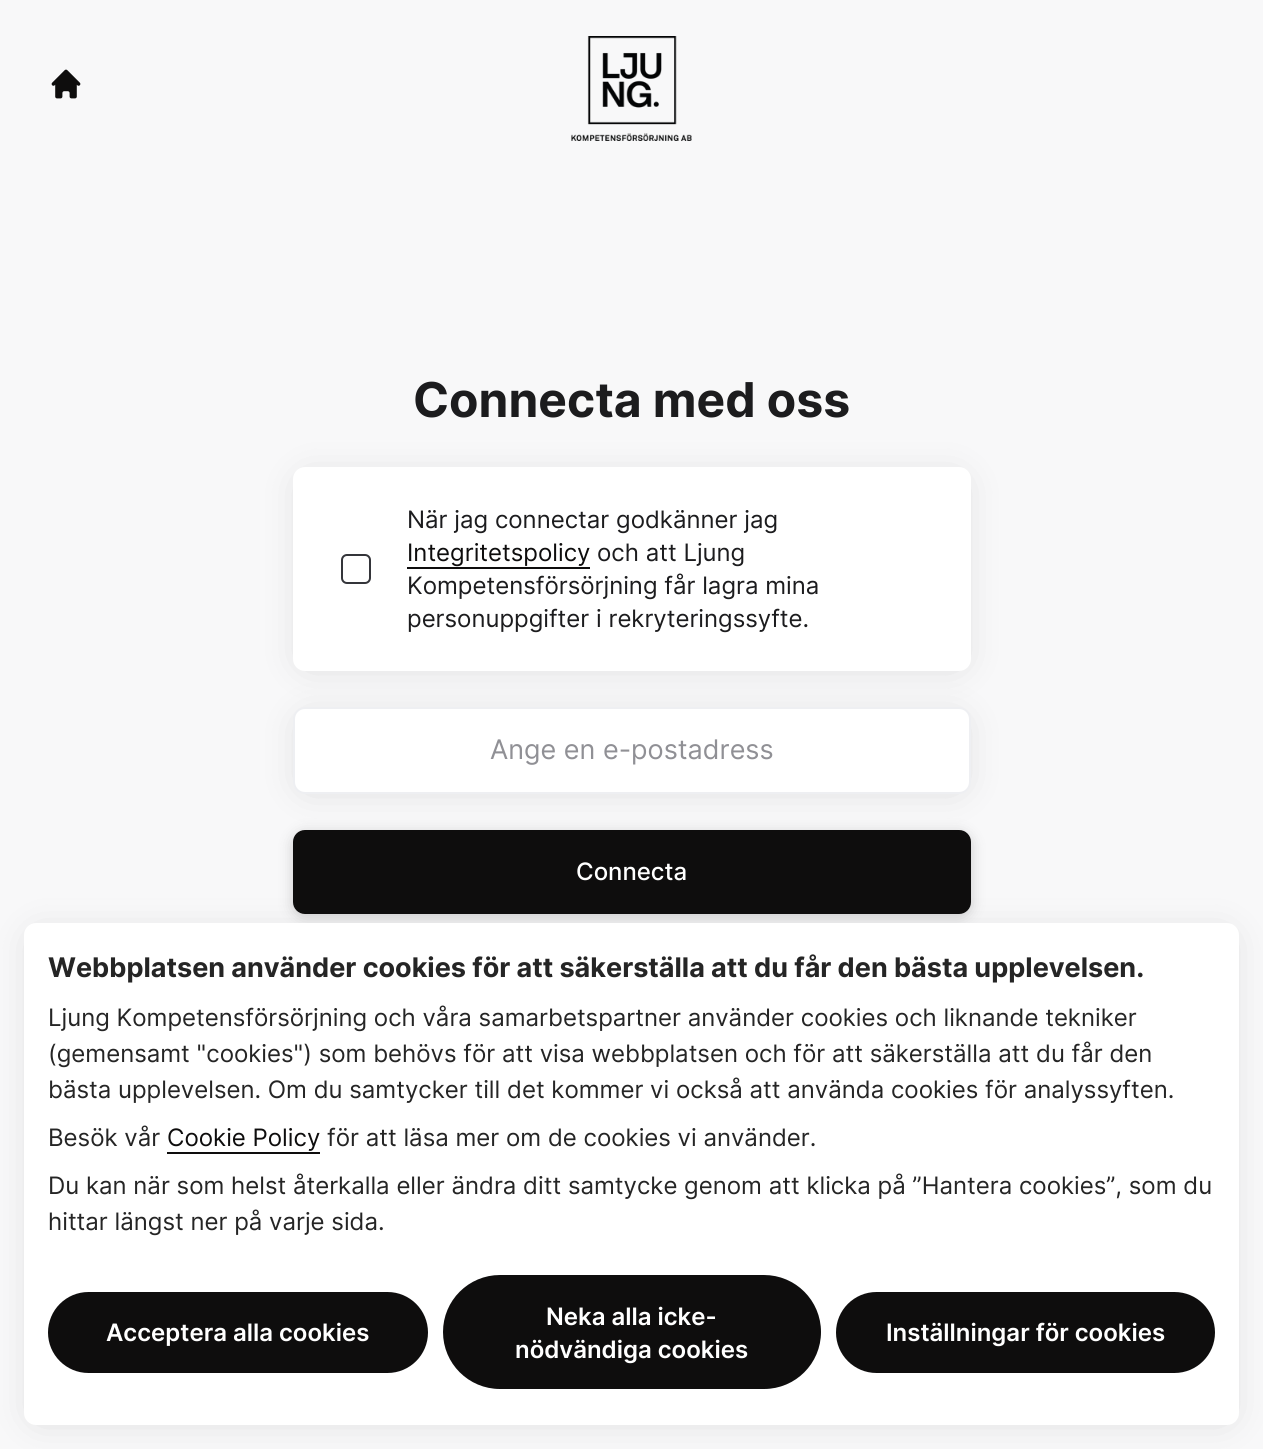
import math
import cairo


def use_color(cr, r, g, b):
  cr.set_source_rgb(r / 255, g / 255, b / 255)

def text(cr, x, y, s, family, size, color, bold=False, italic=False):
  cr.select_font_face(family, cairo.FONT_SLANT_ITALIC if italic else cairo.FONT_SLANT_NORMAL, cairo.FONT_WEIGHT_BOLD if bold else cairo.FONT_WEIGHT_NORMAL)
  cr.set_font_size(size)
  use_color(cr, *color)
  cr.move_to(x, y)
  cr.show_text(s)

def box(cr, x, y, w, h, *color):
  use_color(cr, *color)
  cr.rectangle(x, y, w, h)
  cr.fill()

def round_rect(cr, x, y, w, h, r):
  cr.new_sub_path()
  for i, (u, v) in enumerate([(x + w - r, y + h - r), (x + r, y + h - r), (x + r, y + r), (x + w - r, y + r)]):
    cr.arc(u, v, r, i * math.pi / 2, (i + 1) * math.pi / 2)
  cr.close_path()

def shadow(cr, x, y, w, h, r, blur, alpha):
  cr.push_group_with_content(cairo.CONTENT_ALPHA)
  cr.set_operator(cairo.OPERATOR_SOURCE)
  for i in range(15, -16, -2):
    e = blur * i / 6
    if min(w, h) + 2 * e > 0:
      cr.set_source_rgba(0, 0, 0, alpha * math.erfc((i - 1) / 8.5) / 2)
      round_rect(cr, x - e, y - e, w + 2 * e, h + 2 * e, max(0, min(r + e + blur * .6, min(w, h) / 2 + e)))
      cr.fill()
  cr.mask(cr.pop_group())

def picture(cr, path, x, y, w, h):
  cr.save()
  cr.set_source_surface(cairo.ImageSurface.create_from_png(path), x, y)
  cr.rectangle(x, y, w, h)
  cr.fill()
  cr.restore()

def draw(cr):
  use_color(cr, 248, 248, 249)
  cr.paint()
  picture(cr, "img_01.png", 51, 69, 30, 30)
  picture(cr, "img_02.png", 571, 36, 121, 105)
  use_color(cr, 0, 0, 0)
  shadow(cr, 308, 485, 648, 174, 0, 20, 0.18)
  use_color(cr, 255, 255, 255)
  round_rect(cr, 293, 467, 678, 204, 12)
  cr.fill()
  round_rect(cr, 342, 555, 28, 28, 5)
  use_color(cr, 52, 53, 58)
  cr.stroke()
  box(cr, 407, 567, 183, 2, 14, 13, 13)
  use_color(cr, 0, 0, 0)
  shadow(cr, 308, 725, 648, 57, 0, 20, 0.18)
  use_color(cr, 255, 255, 255)
  round_rect(cr, 294, 708, 676, 85, 11)
  cr.fill_preserve()
  use_color(cr, 238, 239, 242)
  cr.stroke()
  use_color(cr, 0, 0, 0)
  shadow(cr, 293, 833, 678, 84, 12, 7, 0.18)
  use_color(cr, 14, 13, 13)
  round_rect(cr, 293, 830, 678, 84, 12)
  cr.fill()
  use_color(cr, 0, 0, 0)
  shadow(cr, 39, 941, 1185, 472, 0, 20, 0.18)
  use_color(cr, 255, 255, 255)
  round_rect(cr, 24, 923, 1215, 502, 12)
  cr.fill()
  box(cr, 167, 1152, 153, 2, 14, 13, 13)
  round_rect(cr, 48, 1292, 380, 81, 40.5)
  cr.fill()
  round_rect(cr, 443, 1275, 378, 114, 57)
  cr.fill()
  round_rect(cr, 836, 1292, 379, 81, 40.5)
  cr.fill()
  text(cr, 413, 417, "Connecta med oss", "Inter", 48, (28, 28, 30), bold=True)
  text(cr, 407, 528, "När jag connectar godkänner jag", "Inter", 24, (28, 28, 30))
  text(cr, 407, 561, "Integritetspolicy", "Inter", 24, (14, 13, 13))
  text(cr, 597, 561, "och att Ljung", "Inter", 24, (28, 28, 30))
  text(cr, 407, 594, "Kompetensförsörjning får lagra mina", "Inter", 24, (28, 28, 30))
  text(cr, 407, 627, "personuppgifter i rekryteringssyfte.", "Inter", 24, (28, 28, 30))
  text(cr, 490, 759, "Ange en e-postadress", "Inter", 27, (144, 144, 149))
  text(cr, 576, 880, "Connecta", "Inter Medium", 24, (255, 255, 255))
  text(cr, 48, 977, "Webbplatsen använder cookies för att säkerställa att du får den bästa upplevelsen.", "Inter", 27, (37, 37, 37), bold=True)
  text(cr, 48, 1026, "Ljung Kompetensförsörjning och våra samarbetspartner använder cookies och liknande tekniker", "Inter", 24, (37, 37, 37))
  text(cr, 48, 1062, "(gemensamt \"cookies\") som behövs för att visa webbplatsen och för att säkerställa att du får den", "Inter", 24, (37, 37, 37))
  text(cr, 48, 1098, "bästa upplevelsen. Om du samtycker till det kommer vi också att använda cookies för analyssyften.", "Inter", 24, (37, 37, 37))
  text(cr, 48, 1146, "Besök vår", "Inter", 24, (37, 37, 37))
  text(cr, 167, 1146, "Cookie Policy", "Inter", 24, (14, 13, 13))
  text(cr, 327, 1146, "för att läsa mer om de cookies vi använder.", "Inter", 24, (37, 37, 37))
  text(cr, 48, 1194, "Du kan när som helst återkalla eller ändra ditt samtycke genom att klicka på ”Hantera cookies”, som du", "Inter", 24, (37, 37, 37))
  text(cr, 48, 1230, "hittar längst ner på varje sida.", "Inter", 24, (37, 37, 37))
  text(cr, 106, 1341, "Acceptera alla cookies", "Inter SemiBold", 24, (255, 255, 255))
  text(cr, 546, 1325, "Neka alla icke-", "Inter SemiBold", 24, (255, 255, 255))
  text(cr, 515, 1358, "nödvändiga cookies", "Inter SemiBold", 24, (255, 255, 255))
  text(cr, 886, 1341, "Inställningar för cookies", "Inter SemiBold", 24, (255, 255, 255))


surface = cairo.ImageSurface(cairo.FORMAT_RGB24, 1263, 1449)
cr = cairo.Context(surface)
options = cairo.FontOptions()
options.set_hint_metrics(cairo.HINT_METRICS_OFF)
options.set_hint_style(cairo.HINT_STYLE_NONE)
cr.set_font_options(options)
cr.set_miter_limit(4)
draw(cr)
surface.write_to_png("out.png")
